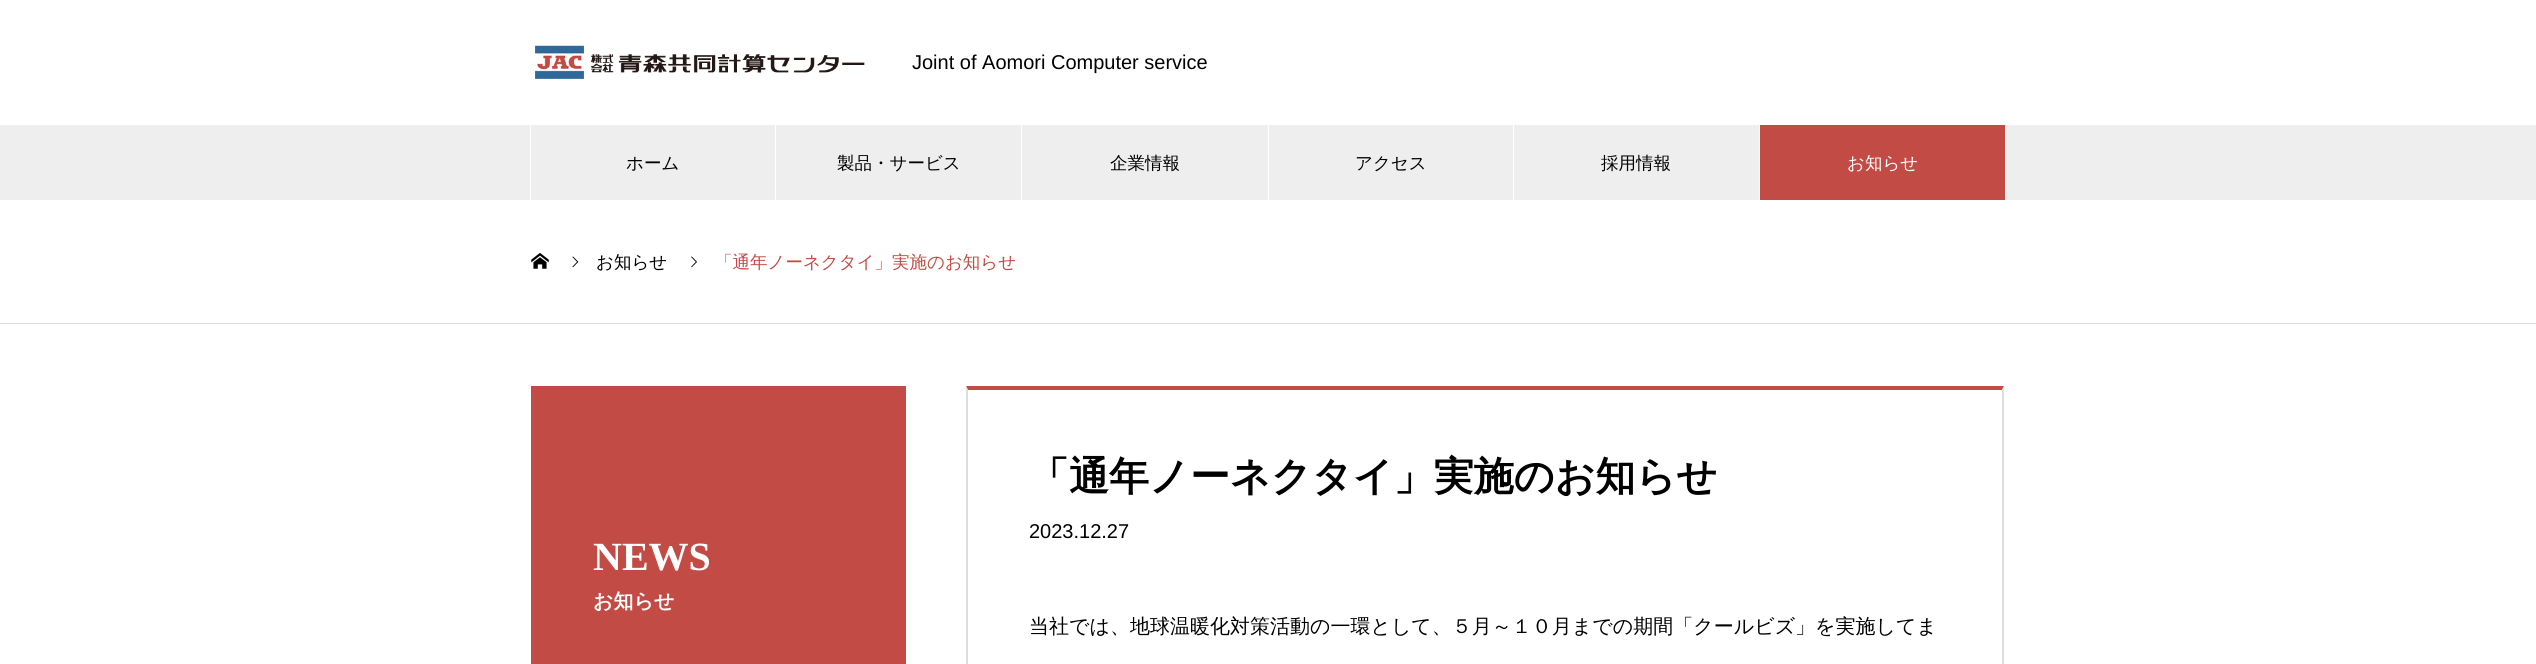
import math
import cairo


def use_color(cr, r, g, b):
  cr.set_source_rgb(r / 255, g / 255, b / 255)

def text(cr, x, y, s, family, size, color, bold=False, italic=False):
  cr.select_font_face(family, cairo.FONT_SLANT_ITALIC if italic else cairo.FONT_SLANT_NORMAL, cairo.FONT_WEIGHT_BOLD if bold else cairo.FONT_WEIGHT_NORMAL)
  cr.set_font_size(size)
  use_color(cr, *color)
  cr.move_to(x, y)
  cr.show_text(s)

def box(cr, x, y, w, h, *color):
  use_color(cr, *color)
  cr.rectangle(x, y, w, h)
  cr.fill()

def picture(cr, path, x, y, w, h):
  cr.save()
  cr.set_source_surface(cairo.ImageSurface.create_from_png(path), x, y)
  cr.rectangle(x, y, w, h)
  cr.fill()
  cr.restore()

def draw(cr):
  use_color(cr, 255, 255, 255)
  cr.paint()
  picture(cr, "img_01.png", 535, 45, 330, 34)
  box(cr, 0, 125, 2536, 75, 238, 238, 238)
  box(cr, 775, 125, 1, 75, 255, 255, 255)
  box(cr, 530, 125, 1, 75, 255, 255, 255)
  box(cr, 1021, 125, 1, 75, 255, 255, 255)
  box(cr, 1513, 125, 1, 75, 255, 255, 255)
  box(cr, 1268, 125, 1, 75, 255, 255, 255)
  box(cr, 2005, 125, 1, 75, 255, 255, 255)
  box(cr, 1759, 125, 1, 75, 255, 255, 255)
  box(cr, 1760, 125, 245, 75, 194, 76, 69)
  picture(cr, "img_02.png", 531, 253, 18, 16)
  picture(cr, "img_03.png", 572, 256, 7, 12)
  picture(cr, "img_04.png", 691, 256, 6, 12)
  box(cr, 0, 323, 2536, 1, 221, 221, 221)
  box(cr, 531, 386, 375, 278, 194, 76, 69)
  cr.new_path()
  cr.move_to(966, 386)
  cr.line_to(2004, 386)
  cr.line_to(2002, 390)
  cr.line_to(968, 390)
  cr.close_path()
  cr.fill()
  use_color(cr, 221, 221, 221)
  cr.new_path()
  cr.move_to(2004, 386)
  cr.line_to(2004, 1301)
  cr.line_to(2002, 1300)
  cr.line_to(2002, 390)
  cr.close_path()
  cr.fill()
  cr.new_path()
  cr.move_to(966, 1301)
  cr.line_to(966, 386)
  cr.line_to(968, 390)
  cr.line_to(968, 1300)
  cr.close_path()
  cr.fill()
  text(cr, 912, 69, "Joint of Aomori Computer service", "Liberation Sans", 20, (0, 0, 0))
  text(cr, 626, 169, "ホーム", "WenQuanYi Zen Hei Medium", 17.5, (0, 0, 0))
  text(cr, 837, 169, "製品・サービス", "WenQuanYi Zen Hei Medium", 17.5, (0, 0, 0))
  text(cr, 1110, 169, "企業情報", "WenQuanYi Zen Hei Medium", 17.5, (0, 0, 0))
  text(cr, 1355, 169, "アクセス", "WenQuanYi Zen Hei Medium", 17.5, (0, 0, 0))
  text(cr, 1601, 169, "採用情報", "WenQuanYi Zen Hei Medium", 17.5, (0, 0, 0))
  text(cr, 1847, 169, "お知らせ", "WenQuanYi Zen Hei Medium", 17.5, (255, 255, 255))
  text(cr, 596, 268, "お知らせ", "WenQuanYi Zen Hei Medium", 17.5, (0, 0, 0))
  text(cr, 715, 268, "「通年ノーネクタイ」実施のお知らせ", "WenQuanYi Zen Hei Medium", 17.5, (194, 76, 69))
  text(cr, 593, 570, "NEWS", "Liberation Serif", 40, (255, 255, 255), bold=True)
  text(cr, 593, 608, "お知らせ", "WenQuanYi Zen Hei", 20, (255, 255, 255), bold=True)
  text(cr, 1029, 490, "「通年ノーネクタイ」実施のお知らせ", "WenQuanYi Zen Hei", 40, (0, 0, 0), bold=True)
  text(cr, 1029, 538, "2023.12.27", "Liberation Sans", 20, (0, 0, 0))
  text(cr, 1029, 633, "当社では、地球温暖化対策活動の一環として、５月～１０月までの期間「クールビズ」を実施してま", "WenQuanYi Zen Hei Medium", 20, (0, 0, 0))


surface = cairo.ImageSurface(cairo.FORMAT_RGB24, 2536, 664)
cr = cairo.Context(surface)
options = cairo.FontOptions()
options.set_hint_metrics(cairo.HINT_METRICS_OFF)
options.set_hint_style(cairo.HINT_STYLE_NONE)
cr.set_font_options(options)
cr.set_miter_limit(4)
draw(cr)
surface.write_to_png("out.png")
